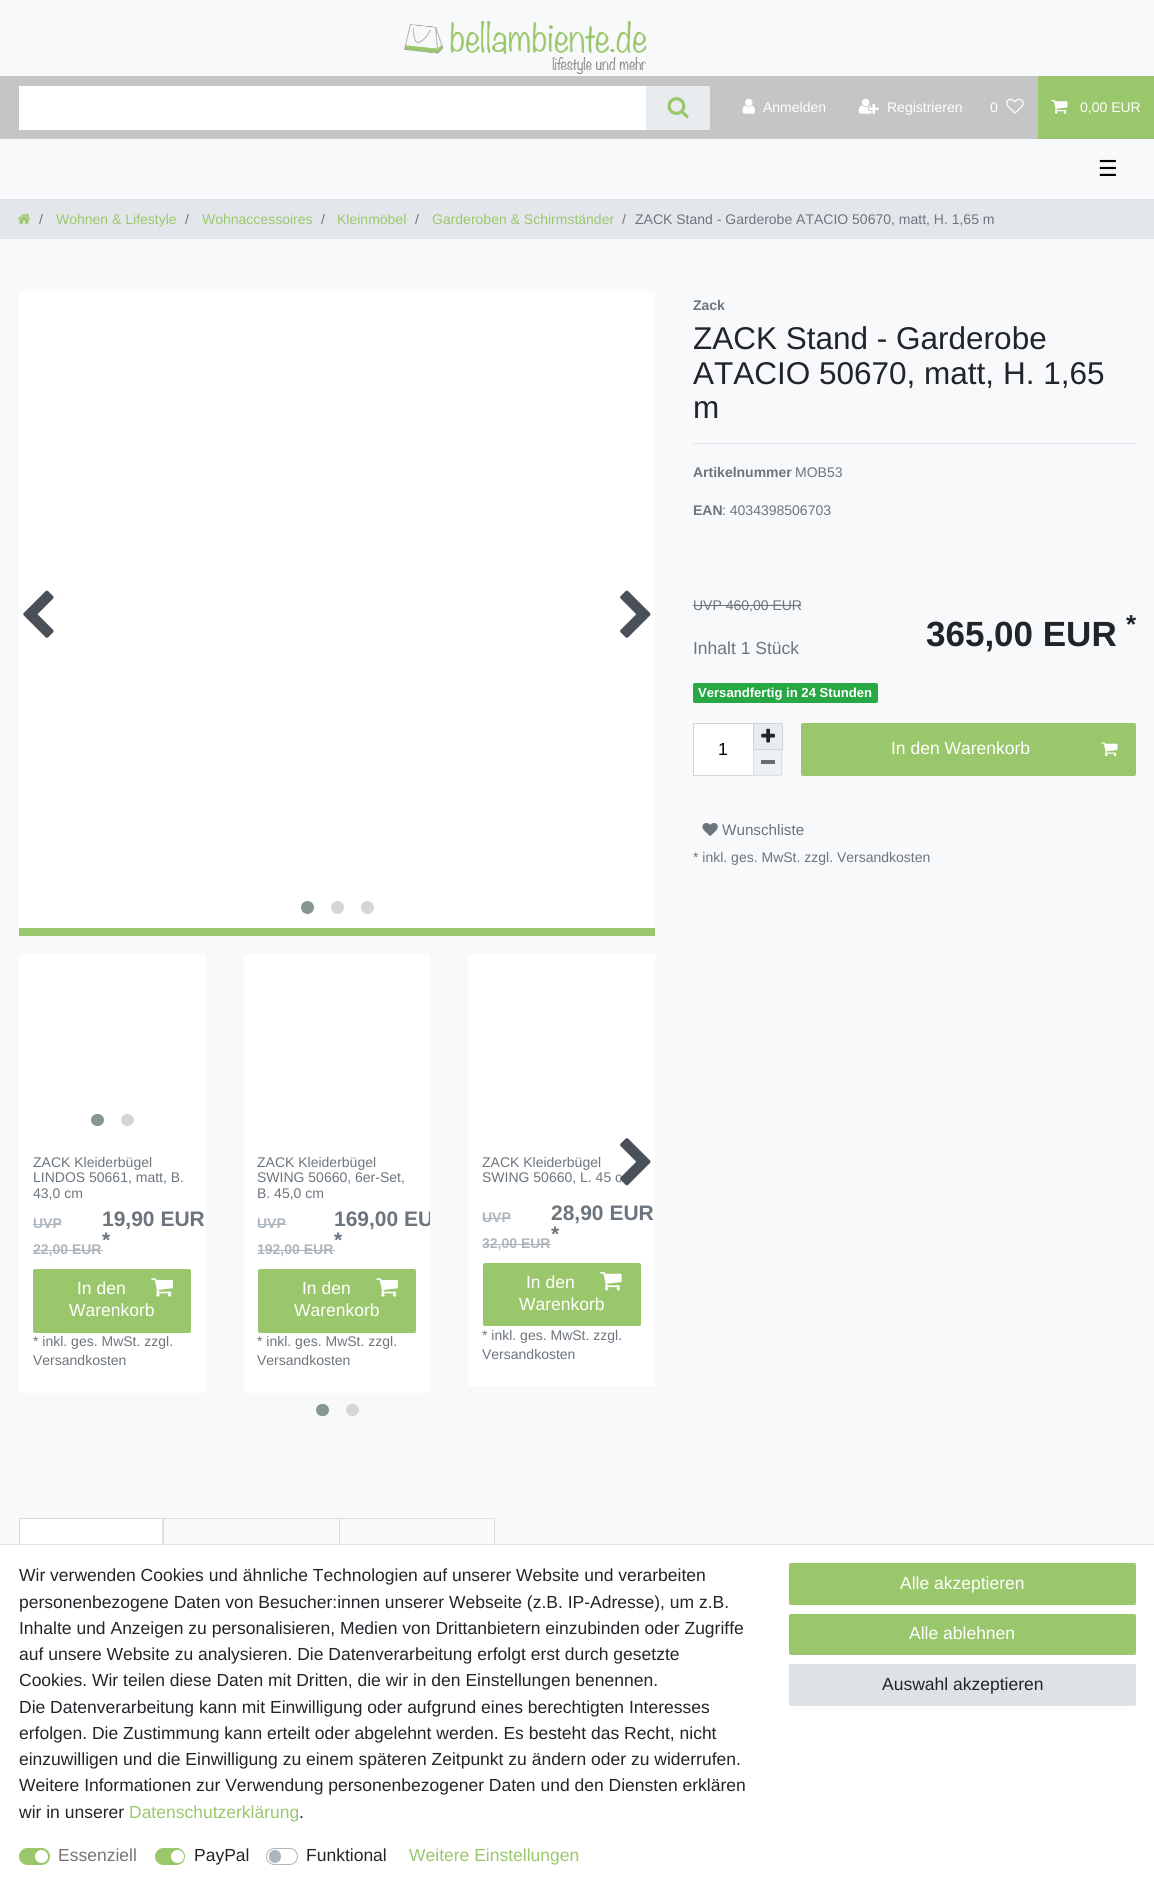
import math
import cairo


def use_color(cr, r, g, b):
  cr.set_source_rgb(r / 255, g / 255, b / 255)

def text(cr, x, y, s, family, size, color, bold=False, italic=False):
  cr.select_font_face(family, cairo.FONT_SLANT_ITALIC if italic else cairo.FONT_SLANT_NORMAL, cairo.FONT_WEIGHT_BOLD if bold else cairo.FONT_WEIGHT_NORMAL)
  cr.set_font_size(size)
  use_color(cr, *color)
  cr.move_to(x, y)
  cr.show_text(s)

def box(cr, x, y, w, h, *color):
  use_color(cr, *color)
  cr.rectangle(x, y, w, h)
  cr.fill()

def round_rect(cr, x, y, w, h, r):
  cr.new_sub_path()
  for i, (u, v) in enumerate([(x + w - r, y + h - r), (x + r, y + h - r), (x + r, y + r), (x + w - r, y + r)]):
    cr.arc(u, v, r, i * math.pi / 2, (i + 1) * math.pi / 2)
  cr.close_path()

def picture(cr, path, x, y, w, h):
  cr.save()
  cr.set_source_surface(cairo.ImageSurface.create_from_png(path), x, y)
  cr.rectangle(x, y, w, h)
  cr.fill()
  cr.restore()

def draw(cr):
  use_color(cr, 248, 249, 250)
  cr.paint()
  picture(cr, "img_01.png", 404, 21, 243, 54)
  box(cr, 0, 76, 1038, 63, 198, 197, 197)
  box(cr, 19, 86, 627, 44, 255, 255, 255)
  box(cr, 646, 86, 64, 44, 233, 236, 239)
  picture(cr, "img_02.png", 667, 97, 22, 22)
  picture(cr, "img_03.png", 742, 98, 13, 16)
  picture(cr, "img_04.png", 858, 98, 21, 16)
  picture(cr, "img_05.png", 1006, 98, 18, 16)
  box(cr, 1038, 76, 116, 63, 154, 199, 107)
  picture(cr, "img_06.png", 1051, 100, 17, 14)
  box(cr, 0, 199, 1154, 1, 222, 226, 230)
  box(cr, 0, 200, 1154, 39, 227, 231, 235)
  picture(cr, "img_07.png", 17, 213, 14, 11)
  box(cr, 693, 443, 443, 1, 222, 226, 230)
  box(cr, 693, 605, 108, 1, 108, 117, 125)
  use_color(cr, 40, 167, 69)
  round_rect(cr, 693, 683, 185, 20, 2)
  cr.fill()
  box(cr, 694, 724, 59, 51, 255, 255, 255)
  box(cr, 693, 723, 60, 1, 206, 212, 218)
  box(cr, 693, 775, 60, 1, 206, 212, 218)
  box(cr, 693, 723, 1, 53, 206, 212, 218)
  use_color(cr, 233, 236, 239)
  cr.new_path()
  cr.move_to(753.5, 723.5)
  cr.line_to(781, 723.5)
  cr.curve_to(782, 723.5, 782.5, 724, 782.5, 725)
  cr.line_to(782.5, 749.5)
  cr.line_to(753.5, 749.5)
  cr.close_path()
  cr.fill_preserve()
  use_color(cr, 206, 212, 218)
  cr.set_line_width(1)
  cr.stroke()
  picture(cr, "img_08.png", 761, 728, 14, 15)
  use_color(cr, 238, 241, 243)
  cr.new_path()
  cr.move_to(753, 750)
  cr.line_to(783, 750)
  cr.line_to(783, 774)
  cr.curve_to(783, 775, 782, 776, 781, 776)
  cr.line_to(753, 776)
  cr.close_path()
  cr.fill()
  box(cr, 781, 750, 1, 25, 221, 225, 229)
  box(cr, 753, 775, 28, 1, 221, 225, 229)
  box(cr, 753, 750, 1, 26, 221, 225, 229)
  box(cr, 761, 760, 14, 4, 105, 108, 112)
  use_color(cr, 154, 199, 107)
  round_rect(cr, 801.5, 723.5, 334, 52, 1.5)
  cr.fill_preserve()
  cr.stroke()
  picture(cr, "img_09.png", 1101, 742, 17, 15)
  picture(cr, "img_10.png", 702, 823, 16, 13)
  box(cr, 19, 291, 636, 637, 255, 255, 255)
  picture(cr, "img_11.png", 23, 590, 31, 48)
  picture(cr, "img_12.png", 620, 590, 31, 48)
  use_color(cr, 134, 151, 145)
  cr.arc(307.5, 907.5, 6.5, 0, 2 * math.pi)
  cr.fill()
  use_color(cr, 214, 214, 214)
  cr.arc(337.5, 907.5, 6.5, 0, 2 * math.pi)
  cr.fill()
  cr.arc(367.5, 907.5, 6.5, 0, 2 * math.pi)
  cr.fill()
  box(cr, 19, 928, 636, 8, 154, 199, 107)
  box(cr, 19, 954, 187, 439, 255, 255, 255)
  use_color(cr, 134, 151, 145)
  round_rect(cr, 91, 1114, 13, 12, 6)
  cr.fill()
  use_color(cr, 214, 214, 214)
  round_rect(cr, 121, 1114, 13, 12, 6)
  cr.fill()
  box(cr, 33, 1224, 28, 1, 173, 181, 189)
  box(cr, 33, 1250, 70, 1, 173, 181, 189)
  use_color(cr, 154, 199, 107)
  round_rect(cr, 33.5, 1269.5, 157, 63, 1.5)
  cr.fill_preserve()
  cr.stroke()
  picture(cr, "img_14.png", 151, 1278, 22, 19)
  box(cr, 244, 954, 186, 439, 255, 255, 255)
  box(cr, 258, 1224, 28, 1, 173, 181, 189)
  box(cr, 258, 1250, 77, 1, 173, 181, 189)
  use_color(cr, 154, 199, 107)
  round_rect(cr, 258.5, 1269.5, 157, 63, 1.5)
  cr.fill_preserve()
  cr.stroke()
  picture(cr, "img_14.png", 376, 1278, 22, 19)
  box(cr, 468, 954, 187, 432, 255, 255, 255)
  box(cr, 483, 1218, 28, 1, 173, 181, 189)
  box(cr, 483, 1244, 68, 1, 173, 181, 189)
  use_color(cr, 154, 199, 107)
  round_rect(cr, 483.5, 1263.5, 157, 62, 1.5)
  cr.fill_preserve()
  cr.stroke()
  picture(cr, "img_15.png", 600, 1272, 22, 19)
  use_color(cr, 134, 151, 145)
  round_rect(cr, 316, 1404, 13, 12, 6)
  cr.fill()
  use_color(cr, 214, 214, 214)
  round_rect(cr, 346, 1404, 13, 12, 6)
  cr.fill()
  use_color(cr, 255, 255, 255)
  cr.new_path()
  cr.move_to(21, 1518)
  cr.line_to(162, 1518)
  cr.curve_to(163, 1518, 164, 1519, 164, 1520)
  cr.line_to(164, 1591)
  cr.line_to(19, 1591)
  cr.line_to(19, 1520)
  cr.curve_to(19, 1519, 20, 1518, 21, 1518)
  cr.close_path()
  cr.fill()
  use_color(cr, 221, 221, 221)
  cr.new_path()
  cr.move_to(20, 1518)
  cr.line_to(19, 1518)
  cr.line_to(20, 1519)
  cr.line_to(162, 1519)
  cr.line_to(163, 1518)
  cr.line_to(162, 1518)
  cr.close_path()
  cr.fill()
  cr.new_path()
  cr.move_to(164, 1591)
  cr.line_to(162, 1590)
  cr.line_to(162, 1519)
  cr.line_to(163, 1518)
  cr.line_to(164, 1518)
  cr.close_path()
  cr.fill()
  cr.new_path()
  cr.move_to(20, 1519)
  cr.line_to(19, 1518)
  cr.line_to(19, 1519)
  cr.line_to(19, 1591)
  cr.line_to(20, 1590)
  cr.close_path()
  cr.fill()
  cr.new_path()
  cr.move_to(165, 1518.5)
  cr.line_to(338, 1518.5)
  cr.curve_to(339, 1518.5, 339.5, 1519, 339.5, 1520)
  cr.line_to(339.5, 1590.5)
  cr.line_to(163.5, 1590.5)
  cr.line_to(163.5, 1520)
  cr.curve_to(163.5, 1519, 164, 1518.5, 165, 1518.5)
  cr.close_path()
  cr.stroke()
  cr.new_path()
  cr.move_to(341, 1518.5)
  cr.line_to(493, 1518.5)
  cr.curve_to(494, 1518.5, 494.5, 1519, 494.5, 1520)
  cr.line_to(494.5, 1590.5)
  cr.line_to(339.5, 1590.5)
  cr.line_to(339.5, 1520)
  cr.curve_to(339.5, 1519, 340, 1518.5, 341, 1518.5)
  cr.close_path()
  cr.stroke()
  box(cr, 0, 1545, 1154, 341, 255, 255, 255)
  box(cr, 0, 1544, 1154, 1, 222, 226, 230)
  use_color(cr, 154, 199, 107)
  round_rect(cr, 19.5, 1848.5, 30, 16, 8)
  cr.fill_preserve()
  cr.stroke()
  use_color(cr, 255, 255, 255)
  cr.arc(41.5, 1856.5, 6.5, 0, 2 * math.pi)
  cr.fill()
  use_color(cr, 154, 199, 107)
  round_rect(cr, 155.5, 1848.5, 29, 16, 8)
  cr.fill_preserve()
  cr.stroke()
  use_color(cr, 255, 255, 255)
  cr.arc(177.5, 1856.5, 6.5, 0, 2 * math.pi)
  cr.fill()
  round_rect(cr, 266.5, 1848.5, 31, 16, 8)
  use_color(cr, 173, 181, 189)
  cr.stroke()
  round_rect(cr, 269, 1850, 12, 13, 6)
  cr.fill()
  use_color(cr, 154, 199, 107)
  round_rect(cr, 789.5, 1563.5, 346, 41, 1.5)
  cr.fill_preserve()
  cr.stroke()
  round_rect(cr, 789.5, 1614.5, 346, 40, 1.5)
  cr.fill_preserve()
  cr.stroke()
  use_color(cr, 222, 226, 230)
  round_rect(cr, 789.5, 1664.5, 346, 41, 1.5)
  cr.fill_preserve()
  cr.stroke()
  text(cr, 763, 112, "Anmelden", "Liberation Sans", 14, (255, 255, 255))
  text(cr, 887, 112, "Registrieren", "Liberation Sans", 14, (255, 255, 255))
  text(cr, 990, 112, "0", "Liberation Sans", 14, (255, 255, 255))
  text(cr, 1080, 112, "0,00 EUR", "Liberation Sans", 14, (255, 255, 255))
  text(cr, 1098, 176, "☰", "DejaVu Sans", 22, (0, 0, 0))
  text(cr, 39, 224, "/", "Liberation Sans", 14, (108, 117, 125))
  text(cr, 56, 224, "Wohnen & Lifestyle", "Liberation Sans", 14, (154, 199, 107))
  text(cr, 185, 224, "/", "Liberation Sans", 14, (108, 117, 125))
  text(cr, 202, 224, "Wohnaccessoires", "Liberation Sans", 14, (154, 199, 107))
  text(cr, 321, 224, "/", "Liberation Sans", 14, (108, 117, 125))
  text(cr, 337, 224, "Kleinmöbel", "Liberation Sans", 14, (154, 199, 107))
  text(cr, 415, 224, "/", "Liberation Sans", 14, (108, 117, 125))
  text(cr, 432, 224, "Garderoben & Schirmständer", "Liberation Sans", 14, (154, 199, 107))
  text(cr, 622, 224, "/", "Liberation Sans", 14, (108, 117, 125))
  text(cr, 635, 224, "ZACK Stand - Garderobe ATACIO 50670, matt, H. 1,65 m", "Liberation Sans", 14, (108, 117, 125))
  text(cr, 693, 310, "Zack", "Liberation Sans", 14, (108, 117, 125), bold=True)
  text(cr, 693, 349, "ZACK Stand - Garderobe", "Liberation Sans", 31.5, (33, 37, 41))
  text(cr, 693, 384, "ATACIO 50670, matt, H. 1,65", "Liberation Sans", 31.5, (33, 37, 41))
  text(cr, 693, 418, "m", "Liberation Sans", 31.5, (33, 37, 41))
  text(cr, 693, 477, "Artikelnummer", "Liberation Sans", 14, (108, 117, 125), bold=True)
  text(cr, 795, 477, "MOB53", "Liberation Sans", 14, (108, 117, 125))
  text(cr, 693, 515, "EAN", "Liberation Sans", 14, (108, 117, 125), bold=True)
  text(cr, 722, 515, ": 4034398506703", "Liberation Sans", 14, (108, 117, 125))
  text(cr, 693, 610, "UVP 460,00 EUR", "Liberation Sans", 14, (108, 117, 125))
  text(cr, 693, 654, "Inhalt 1 Stück", "Liberation Sans", 17.5, (108, 117, 125))
  text(cr, 1126, 633, "*", "Liberation Sans", 26, (33, 37, 41), bold=True)
  text(cr, 926, 646, "365,00 EUR", "Liberation Sans", 35, (33, 37, 41), bold=True)
  text(cr, 698, 697, "Versandfertig in 24 Stunden", "Liberation Sans", 13.1, (255, 255, 255), bold=True)
  text(cr, 718, 755, "1", "Liberation Sans", 17.5, (0, 0, 0))
  text(cr, 891, 754, "In den Warenkorb", "Liberation Sans", 17.5, (255, 255, 255))
  text(cr, 722, 835, "Wunschliste", "Liberation Sans", 15.25, (108, 117, 125))
  text(cr, 693, 862, "* inkl. ges. MwSt. zzgl. Versandkosten", "Liberation Sans", 14, (108, 117, 125))
  text(cr, 33, 1167, "ZACK Kleiderbügel", "Liberation Sans", 14, (108, 117, 125))
  text(cr, 33, 1182, "LINDOS 50661, matt, B.", "Liberation Sans", 14, (108, 117, 125))
  text(cr, 33, 1198, "43,0 cm", "Liberation Sans", 14, (108, 117, 125))
  text(cr, 33, 1228, "UVP", "Liberation Sans", 14, (173, 181, 189), bold=True)
  text(cr, 33, 1254, "22,00 EUR", "Liberation Sans", 14, (173, 181, 189), bold=True)
  text(cr, 102, 1226, "19,90 EUR", "Liberation Sans", 21, (108, 117, 125), bold=True)
  text(cr, 102, 1247, "*", "Liberation Sans", 21, (108, 117, 125), bold=True)
  text(cr, 77, 1294, "In den", "Liberation Sans", 17.5, (255, 255, 255))
  text(cr, 69, 1316, "Warenkorb", "Liberation Sans", 17.5, (255, 255, 255))
  text(cr, 33, 1346, "* inkl. ges. MwSt. zzgl.", "Liberation Sans", 14, (108, 117, 125))
  text(cr, 33, 1365, "Versandkosten", "Liberation Sans", 14, (108, 117, 125))
  text(cr, 257, 1167, "ZACK Kleiderbügel", "Liberation Sans", 14, (108, 117, 125))
  text(cr, 257, 1182, "SWING 50660, 6er-Set,", "Liberation Sans", 14, (108, 117, 125))
  text(cr, 257, 1198, "B. 45,0 cm", "Liberation Sans", 14, (108, 117, 125))
  text(cr, 257, 1228, "UVP", "Liberation Sans", 14, (173, 181, 189), bold=True)
  text(cr, 257, 1254, "192,00 EUR", "Liberation Sans", 14, (173, 181, 189), bold=True)
  cr.save()
  cr.rectangle(244, 954, 186, 439)
  cr.clip()
  text(cr, 334, 1226, "169,00 EU", "Liberation Sans", 21, (108, 117, 125), bold=True)
  cr.restore()
  text(cr, 334, 1247, "*", "Liberation Sans", 21, (108, 117, 125), bold=True)
  text(cr, 302, 1294, "In den", "Liberation Sans", 17.5, (255, 255, 255))
  text(cr, 294, 1316, "Warenkorb", "Liberation Sans", 17.5, (255, 255, 255))
  text(cr, 257, 1346, "* inkl. ges. MwSt. zzgl.", "Liberation Sans", 14, (108, 117, 125))
  text(cr, 257, 1365, "Versandkosten", "Liberation Sans", 14, (108, 117, 125))
  text(cr, 482, 1167, "ZACK Kleiderbügel", "Liberation Sans", 14, (108, 117, 125))
  text(cr, 482, 1182, "SWING 50660, L. 45 c", "Liberation Sans", 14, (108, 117, 125))
  picture(cr, "img_13.png", 620, 1138, 31, 48)
  text(cr, 482, 1222, "UVP", "Liberation Sans", 14, (173, 181, 189), bold=True)
  text(cr, 482, 1248, "32,00 EUR", "Liberation Sans", 14, (173, 181, 189), bold=True)
  text(cr, 551, 1220, "28,90 EUR", "Liberation Sans", 21, (108, 117, 125), bold=True)
  text(cr, 551, 1241, "*", "Liberation Sans", 21, (108, 117, 125), bold=True)
  text(cr, 526, 1288, "In den", "Liberation Sans", 17.5, (255, 255, 255))
  text(cr, 519, 1310, "Warenkorb", "Liberation Sans", 17.5, (255, 255, 255))
  text(cr, 482, 1340, "* inkl. ges. MwSt. zzgl.", "Liberation Sans", 14, (108, 117, 125))
  text(cr, 482, 1359, "Versandkosten", "Liberation Sans", 14, (108, 117, 125))
  text(cr, 19, 1581, "Wir verwenden Cookies und ähnliche Technologien auf unserer Website und verarbeiten", "Liberation Sans", 17.5, (33, 37, 41))
  text(cr, 19, 1608, "personenbezogene Daten von Besucher:innen unserer Webseite (z.B. IP-Adresse), um z.B.", "Liberation Sans", 17.5, (33, 37, 41))
  text(cr, 19, 1634, "Inhalte und Anzeigen zu personalisieren, Medien von Drittanbietern einzubinden oder Zugriffe", "Liberation Sans", 17.5, (33, 37, 41))
  text(cr, 19, 1660, "auf unsere Website zu analysieren. Die Datenverarbeitung erfolgt erst durch gesetzte", "Liberation Sans", 17.5, (33, 37, 41))
  text(cr, 19, 1686, "Cookies. Wir teilen diese Daten mit Dritten, die wir in den Einstellungen benennen.", "Liberation Sans", 17.5, (33, 37, 41))
  text(cr, 19, 1713, "Die Datenverarbeitung kann mit Einwilligung oder aufgrund eines berechtigten Interesses", "Liberation Sans", 17.5, (33, 37, 41))
  text(cr, 19, 1739, "erfolgen. Die Zustimmung kann erteilt oder abgelehnt werden. Es besteht das Recht, nicht", "Liberation Sans", 17.5, (33, 37, 41))
  text(cr, 19, 1765, "einzuwilligen und die Einwilligung zu einem späteren Zeitpunkt zu ändern oder zu widerrufen.", "Liberation Sans", 17.5, (33, 37, 41))
  text(cr, 19, 1791, "Weitere Informationen zur Verwendung personenbezogener Daten und den Diensten erklären", "Liberation Sans", 17.5, (33, 37, 41))
  text(cr, 19, 1818, "wir in unserer", "Liberation Sans", 17.5, (33, 37, 41))
  text(cr, 129, 1818, "Datenschutzerklärung", "Liberation Sans", 17.5, (154, 199, 107))
  text(cr, 299, 1818, ".", "Liberation Sans", 17.5, (33, 37, 41))
  text(cr, 58, 1861, "Essenziell", "Liberation Sans", 17.5, (118, 118, 118))
  text(cr, 194, 1861, "PayPal", "Liberation Sans", 17.5, (33, 37, 41))
  text(cr, 306, 1861, "Funktional", "Liberation Sans", 17.5, (33, 37, 41))
  text(cr, 409, 1861, "Weitere Einstellungen", "Liberation Sans", 17.5, (154, 199, 107))
  text(cr, 900, 1589, "Alle akzeptieren", "Liberation Sans", 17.5, (255, 255, 255))
  text(cr, 909, 1639, "Alle ablehnen", "Liberation Sans", 17.5, (255, 255, 255))
  text(cr, 882, 1690, "Auswahl akzeptieren", "Liberation Sans", 17.5, (33, 37, 41))


surface = cairo.ImageSurface(cairo.FORMAT_RGB24, 1154, 1886)
cr = cairo.Context(surface)
options = cairo.FontOptions()
options.set_hint_metrics(cairo.HINT_METRICS_OFF)
options.set_hint_style(cairo.HINT_STYLE_NONE)
cr.set_font_options(options)
cr.set_miter_limit(4)
draw(cr)
surface.write_to_png("out.png")
